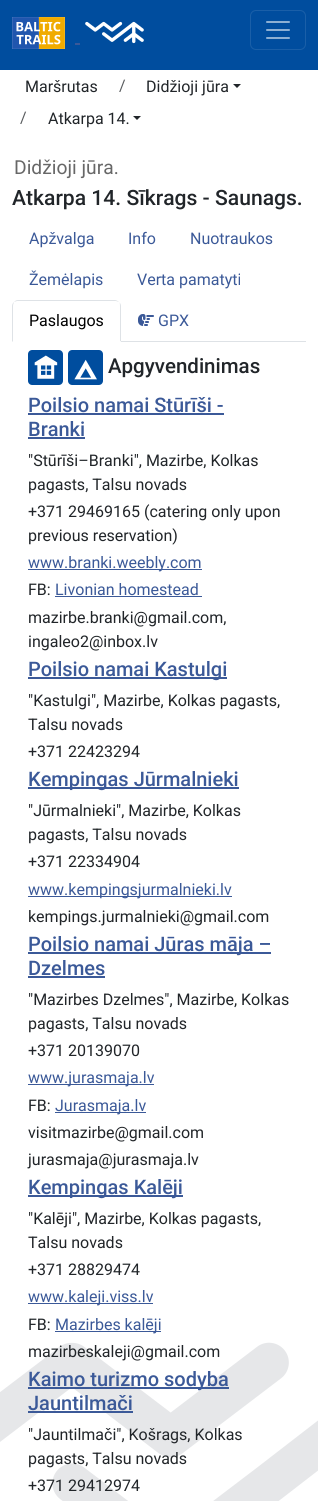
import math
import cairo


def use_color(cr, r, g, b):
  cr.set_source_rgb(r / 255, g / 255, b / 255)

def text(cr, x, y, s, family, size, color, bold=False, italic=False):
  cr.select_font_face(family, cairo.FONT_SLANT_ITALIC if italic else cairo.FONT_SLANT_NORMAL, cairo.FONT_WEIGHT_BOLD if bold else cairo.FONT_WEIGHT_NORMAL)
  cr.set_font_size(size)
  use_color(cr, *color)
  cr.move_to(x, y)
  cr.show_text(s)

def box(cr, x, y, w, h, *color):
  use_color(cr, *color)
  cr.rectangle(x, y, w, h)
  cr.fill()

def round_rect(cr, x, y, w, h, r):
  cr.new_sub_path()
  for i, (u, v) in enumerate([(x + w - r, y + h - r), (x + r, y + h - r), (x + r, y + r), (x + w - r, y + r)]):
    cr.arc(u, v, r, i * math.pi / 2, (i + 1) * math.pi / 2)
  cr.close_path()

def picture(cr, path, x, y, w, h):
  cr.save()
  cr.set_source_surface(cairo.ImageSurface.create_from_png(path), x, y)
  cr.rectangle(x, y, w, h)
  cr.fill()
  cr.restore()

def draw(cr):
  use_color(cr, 255, 255, 255)
  cr.paint()
  picture(cr, "img_01.png", 0, 1342, 318, 159)
  box(cr, 0, 0, 318, 70, 0, 77, 158)
  picture(cr, "img_02.png", 12, 17, 53, 32)
  box(cr, 75, 43, 5, 2, 59, 89, 152)
  picture(cr, "img_03.png", 85, 21, 59, 23)
  round_rect(cr, 250.5, 10.5, 55, 39, 5.5)
  use_color(cr, 26, 95, 168)
  cr.set_line_width(1)
  cr.stroke()
  picture(cr, "img_04.png", 266, 21, 24, 18)
  use_color(cr, 33, 37, 41)
  cr.new_path()
  cr.move_to(233, 84)
  cr.line_to(241, 84)
  cr.line_to(237, 88)
  cr.close_path()
  cr.fill()
  cr.new_path()
  cr.move_to(133, 116)
  cr.line_to(141, 116)
  cr.line_to(137, 120)
  cr.close_path()
  cr.fill()
  box(cr, 121, 341, 185, 1, 222, 226, 230)
  cr.new_path()
  cr.move_to(18, 300)
  cr.curve_to(16, 300, 15, 301, 14, 302)
  cr.line_to(17, 301)
  cr.line_to(116, 301)
  cr.line_to(119, 302)
  cr.curve_to(118, 301, 116, 300, 115, 300)
  cr.close_path()
  cr.fill()
  cr.new_path()
  cr.move_to(121, 342)
  cr.line_to(121, 306)
  cr.curve_to(121, 304, 120, 303, 119, 302)
  cr.curve_to(120, 303, 120, 304, 120, 306)
  cr.line_to(120, 341)
  cr.close_path()
  cr.fill()
  use_color(cr, 255, 255, 255)
  cr.new_path()
  cr.move_to(121, 342)
  cr.line_to(120, 341)
  cr.line_to(13, 341)
  cr.line_to(12, 342)
  cr.close_path()
  cr.fill()
  use_color(cr, 222, 226, 230)
  cr.new_path()
  cr.move_to(12, 342)
  cr.line_to(13, 341)
  cr.line_to(13, 306)
  cr.curve_to(13, 304, 14, 303, 14, 302)
  cr.curve_to(13, 303, 12, 304, 12, 306)
  cr.close_path()
  cr.fill()
  picture(cr, "img_05.png", 138, 314, 16, 12)
  picture(cr, "img_06.png", 28, 350, 35, 35)
  picture(cr, "img_07.png", 68, 350, 35, 35)
  box(cr, 28, 413, 196, 2, 59, 89, 152)
  box(cr, 28, 437, 57, 2, 59, 89, 152)
  box(cr, 28, 569, 174, 1, 59, 89, 152)
  box(cr, 55, 596, 147, 1, 59, 89, 152)
  box(cr, 28, 677, 199, 2, 59, 89, 152)
  box(cr, 28, 787, 211, 2, 59, 89, 152)
  box(cr, 28, 896, 204, 1, 59, 89, 152)
  box(cr, 28, 952, 243, 2, 59, 89, 152)
  box(cr, 28, 976, 77, 2, 59, 89, 152)
  box(cr, 28, 1084, 126, 1, 59, 89, 152)
  box(cr, 55, 1112, 91, 1, 59, 89, 152)
  box(cr, 28, 1195, 155, 2, 59, 89, 152)
  box(cr, 28, 1303, 125, 1, 59, 89, 152)
  box(cr, 55, 1331, 106, 1, 59, 89, 152)
  box(cr, 28, 1387, 201, 2, 59, 89, 152)
  box(cr, 28, 1411, 105, 2, 59, 89, 152)
  text(cr, 25, 92, "Maršrutas", "Roboto", 16, (33, 37, 41))
  text(cr, 119, 91, "/", "Roboto", 16, (89, 92, 95))
  text(cr, 146, 92, "Didžioji jūra", "Roboto", 16, (33, 37, 41))
  text(cr, 20, 123, "/", "Roboto", 16, (89, 92, 95))
  text(cr, 48, 124, "Atkarpa 14.", "Roboto", 16, (33, 37, 41))
  text(cr, 14, 174, "Didžioji jūra.", "Roboto", 19.25, (103, 103, 103))
  text(cr, 12, 205, "Atkarpa 14. Sīkrags - Saunags.", "Roboto Medium", 21.1, (33, 37, 41))
  text(cr, 29, 244, "Apžvalga", "Roboto", 16, (59, 89, 152))
  text(cr, 128, 244, "Info", "Roboto", 16, (59, 89, 152))
  text(cr, 190, 244, "Nuotraukos", "Roboto", 16, (59, 89, 152))
  text(cr, 29, 285, "Žemėlapis", "Roboto", 16, (59, 89, 152))
  text(cr, 137, 285, "Verta pamatyti", "Roboto", 16, (59, 89, 152))
  text(cr, 29, 326, "Paslaugos", "Roboto", 16, (0, 0, 0))
  text(cr, 158, 326, "GPX", "Roboto", 16, (59, 89, 152))
  text(cr, 108, 373, "Apgyvendinimas", "Roboto Medium", 20.5, (33, 37, 41))
  text(cr, 28, 412, "Poilsio namai Stūrīši -", "Roboto Medium", 20, (59, 89, 152))
  text(cr, 28, 436, "Branki", "Roboto Medium", 20, (59, 89, 152))
  text(cr, 28, 466, "\"Stūrīši–Branki\", Mazirbe, Kolkas", "Roboto", 16, (33, 37, 41))
  text(cr, 28, 490, "pagasts, Talsu novads", "Roboto", 16, (33, 37, 41))
  text(cr, 28, 517, "+371 29469165 (catering only upon", "Roboto", 16, (33, 37, 41))
  text(cr, 28, 541, "previous reservation)", "Roboto", 16, (33, 37, 41))
  text(cr, 28, 568, "www.branki.weebly.com", "Roboto", 16, (59, 89, 152))
  text(cr, 28, 595, "FB:", "Roboto", 16, (33, 37, 41))
  text(cr, 55, 595, "Livonian homestead", "Roboto", 16, (59, 89, 152))
  text(cr, 28, 623, "mazirbe.branki@gmail.com,", "Roboto", 16, (33, 37, 41))
  text(cr, 28, 647, "ingaleo2@inbox.lv", "Roboto", 16, (33, 37, 41))
  text(cr, 28, 676, "Poilsio namai Kastulgi", "Roboto Medium", 20, (59, 89, 152))
  text(cr, 28, 706, "\"Kastulgi\", Mazirbe, Kolkas pagasts,", "Roboto", 16, (33, 37, 41))
  text(cr, 28, 730, "Talsu novads", "Roboto", 16, (33, 37, 41))
  text(cr, 28, 757, "+371 22423294", "Roboto", 16, (33, 37, 41))
  text(cr, 28, 786, "Kempingas Jūrmalnieki", "Roboto Medium", 20, (59, 89, 152))
  text(cr, 28, 816, "\"Jūrmalnieki\", Mazirbe, Kolkas", "Roboto", 16, (33, 37, 41))
  text(cr, 28, 840, "pagasts, Talsu novads", "Roboto", 16, (33, 37, 41))
  text(cr, 28, 867, "+371 22334904", "Roboto", 16, (33, 37, 41))
  text(cr, 28, 895, "www.kempingsjurmalnieki.lv", "Roboto", 16, (59, 89, 152))
  text(cr, 28, 922, "kempings.jurmalnieki@gmail.com", "Roboto", 16, (33, 37, 41))
  text(cr, 28, 951, "Poilsio namai Jūras māja –", "Roboto Medium", 20, (59, 89, 152))
  text(cr, 28, 975, "Dzelmes", "Roboto Medium", 20, (59, 89, 152))
  text(cr, 28, 1005, "\"Mazirbes Dzelmes\", Mazirbe, Kolkas", "Roboto", 16, (33, 37, 41))
  text(cr, 28, 1029, "pagasts, Talsu novads", "Roboto", 16, (33, 37, 41))
  text(cr, 28, 1056, "+371 20139070", "Roboto", 16, (33, 37, 41))
  text(cr, 28, 1083, "www.jurasmaja.lv", "Roboto", 16, (59, 89, 152))
  text(cr, 28, 1111, "FB:", "Roboto", 16, (33, 37, 41))
  text(cr, 55, 1111, "Jurasmaja.lv", "Roboto", 16, (59, 89, 152))
  text(cr, 28, 1138, "visitmazirbe@gmail.com", "Roboto", 16, (33, 37, 41))
  text(cr, 28, 1165, "jurasmaja@jurasmaja.lv", "Roboto", 16, (33, 37, 41))
  text(cr, 28, 1194, "Kempingas Kalēji", "Roboto Medium", 20, (59, 89, 152))
  text(cr, 28, 1224, "\"Kalēji\", Mazirbe, Kolkas pagasts,", "Roboto", 16, (33, 37, 41))
  text(cr, 28, 1248, "Talsu novads", "Roboto", 16, (33, 37, 41))
  text(cr, 28, 1275, "+371 28829474", "Roboto", 16, (33, 37, 41))
  text(cr, 28, 1302, "www.kaleji.viss.lv", "Roboto", 16, (59, 89, 152))
  text(cr, 28, 1330, "FB:", "Roboto", 16, (33, 37, 41))
  text(cr, 55, 1330, "Mazirbes kalēji", "Roboto", 16, (59, 89, 152))
  text(cr, 28, 1357, "mazirbeskaleji@gmail.com", "Roboto", 16, (33, 37, 41))
  text(cr, 28, 1386, "Kaimo turizmo sodyba", "Roboto Medium", 20, (59, 89, 152))
  text(cr, 28, 1410, "Jauntilmači", "Roboto Medium", 20, (59, 89, 152))
  text(cr, 28, 1440, "\"Jauntilmači\", Košrags, Kolkas", "Roboto", 16, (33, 37, 41))
  text(cr, 28, 1464, "pagasts, Talsu novads", "Roboto", 16, (33, 37, 41))
  text(cr, 28, 1491, "+371 29412974", "Roboto", 16, (33, 37, 41))


surface = cairo.ImageSurface(cairo.FORMAT_RGB24, 318, 1501)
cr = cairo.Context(surface)
options = cairo.FontOptions()
options.set_hint_metrics(cairo.HINT_METRICS_OFF)
options.set_hint_style(cairo.HINT_STYLE_NONE)
cr.set_font_options(options)
cr.set_miter_limit(4)
draw(cr)
surface.write_to_png("out.png")
